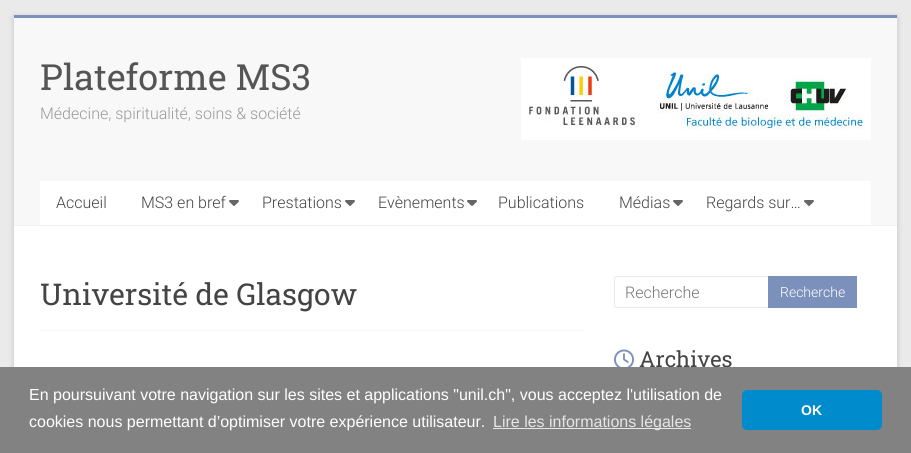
import math
import cairo


def use_color(cr, r, g, b):
  cr.set_source_rgb(r / 255, g / 255, b / 255)

def text(cr, x, y, s, family, size, color, bold=False, italic=False):
  cr.select_font_face(family, cairo.FONT_SLANT_ITALIC if italic else cairo.FONT_SLANT_NORMAL, cairo.FONT_WEIGHT_BOLD if bold else cairo.FONT_WEIGHT_NORMAL)
  cr.set_font_size(size)
  use_color(cr, *color)
  cr.move_to(x, y)
  cr.show_text(s)

def box(cr, x, y, w, h, *color):
  use_color(cr, *color)
  cr.rectangle(x, y, w, h)
  cr.fill()

def round_rect(cr, x, y, w, h, r):
  cr.new_sub_path()
  for i, (u, v) in enumerate([(x + w - r, y + h - r), (x + r, y + h - r), (x + r, y + r), (x + w - r, y + r)]):
    cr.arc(u, v, r, i * math.pi / 2, (i + 1) * math.pi / 2)
  cr.close_path()

def shadow(cr, x, y, w, h, r, blur, alpha):
  cr.push_group_with_content(cairo.CONTENT_ALPHA)
  cr.set_operator(cairo.OPERATOR_SOURCE)
  for i in range(15, -16, -2):
    e = blur * i / 6
    if min(w, h) + 2 * e > 0:
      cr.set_source_rgba(0, 0, 0, alpha * math.erfc((i - 1) / 8.5) / 2)
      round_rect(cr, x - e, y - e, w + 2 * e, h + 2 * e, max(0, min(r + e + blur * .6, min(w, h) / 2 + e)))
      cr.fill()
  cr.mask(cr.pop_group())

def picture(cr, path, x, y, w, h):
  cr.save()
  cr.set_source_surface(cairo.ImageSurface.create_from_png(path), x, y)
  cr.rectangle(x, y, w, h)
  cr.fill()
  cr.restore()

def draw(cr):
  use_color(cr, 234, 234, 234)
  cr.paint()
  use_color(cr, 100, 100, 100)
  shadow(cr, 14, 17, 883, 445, 0, 3, 0.3)
  box(cr, 14, 226, 883, 141, 255, 255, 255)
  box(cr, 14, 15, 883, 3, 124, 144, 188)
  box(cr, 14, 18, 883, 207, 248, 248, 248)
  box(cr, 14, 225, 883, 1, 242, 242, 242)
  picture(cr, "img_01.png", 521, 58, 350, 82)
  box(cr, 40, 181, 831, 44, 255, 255, 255)
  picture(cr, "img_02.png", 229, 200, 10, 6)
  picture(cr, "img_02.png", 345, 200, 10, 6)
  picture(cr, "img_02.png", 467, 200, 10, 6)
  picture(cr, "img_02.png", 673, 200, 10, 6)
  picture(cr, "img_02.png", 804, 200, 10, 6)
  box(cr, 40, 330, 544, 1, 248, 248, 248)
  use_color(cr, 234, 234, 234)
  cr.set_fill_rule(cairo.FILL_RULE_EVEN_ODD)
  cr.new_path()
  cr.move_to(617, 276)
  cr.line_to(768, 276)
  cr.line_to(768, 308)
  cr.line_to(617, 308)
  cr.curve_to(615, 308, 614, 307, 614, 305)
  cr.line_to(614, 279)
  cr.curve_to(614, 277, 615, 276, 617, 276)
  cr.close_path()
  cr.move_to(617, 277)
  cr.line_to(768, 277)
  cr.line_to(768, 307)
  cr.line_to(617, 307)
  cr.curve_to(616, 307, 615, 306, 615, 305)
  cr.line_to(615, 279)
  cr.curve_to(615, 278, 616, 277, 617, 277)
  cr.close_path()
  cr.fill()
  box(cr, 768, 276, 89, 32, 124, 144, 188)
  picture(cr, "img_03.png", 614, 349, 20, 18)
  text(cr, 40, 90, "Plateforme MS3", "Roboto Slab", 36, (85, 85, 85))
  text(cr, 40, 119, "Médecine, spiritualité, soins & société", "Roboto Light", 16, (153, 153, 153))
  text(cr, 56, 208, "Accueil", "Roboto Light", 16, (68, 68, 68))
  text(cr, 141, 208, "MS3 en bref", "Roboto Light", 16, (68, 68, 68))
  text(cr, 262, 208, "Prestations", "Roboto Light", 16, (68, 68, 68))
  text(cr, 378, 208, "Evènements", "Roboto Light", 16, (68, 68, 68))
  text(cr, 498, 208, "Publications", "Roboto Light", 16, (68, 68, 68))
  text(cr, 619, 208, "Médias", "Roboto Light", 16, (68, 68, 68))
  text(cr, 706, 208, "Regards sur…", "Roboto Light", 16, (68, 68, 68))
  text(cr, 40, 305, "Université de Glasgow", "Roboto Slab", 30, (68, 68, 68))
  text(cr, 625, 298, "Recherche", "Roboto Light", 16, (117, 117, 117))
  text(cr, 780, 297, "Recherche", "Roboto Light", 14, (255, 255, 255))
  text(cr, 639, 367, "Archives", "Roboto Slab", 22, (68, 68, 68))
  box(cr, 0, 367, 911, 86, 130, 130, 130)
  text(cr, 29, 400, "En poursuivant votre navigation sur les sites et applications \"unil.ch\", vous acceptez l'utilisation de", "Liberation Sans", 16, (255, 255, 255))
  text(cr, 29, 427, "cookies nous permettant d’optimiser votre expérience utilisateur.", "Liberation Sans", 16, (255, 255, 255))
  box(cr, 493, 428, 198, 1, 230, 230, 230)
  text(cr, 493, 427, "Lire les informations légales", "Liberation Sans", 16, (230, 230, 230))
  use_color(cr, 0, 140, 204)
  round_rect(cr, 742, 390, 140, 40, 5)
  cr.fill()
  text(cr, 801, 415, "OK", "Liberation Sans", 14, (255, 255, 255), bold=True)


surface = cairo.ImageSurface(cairo.FORMAT_RGB24, 911, 453)
cr = cairo.Context(surface)
options = cairo.FontOptions()
options.set_hint_metrics(cairo.HINT_METRICS_OFF)
options.set_hint_style(cairo.HINT_STYLE_NONE)
cr.set_font_options(options)
cr.set_miter_limit(4)
draw(cr)
surface.write_to_png("out.png")
